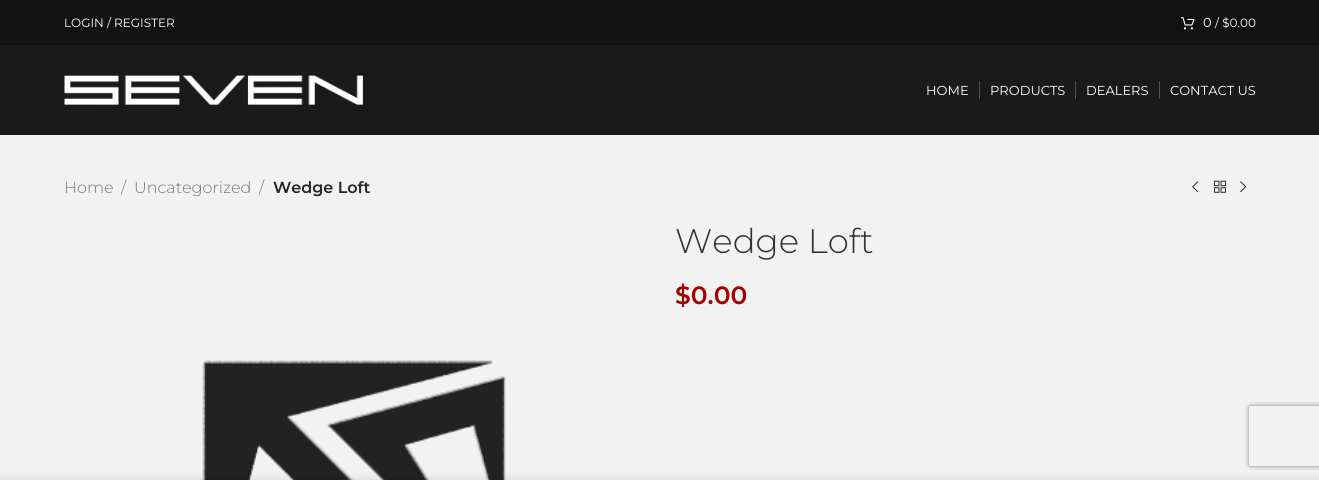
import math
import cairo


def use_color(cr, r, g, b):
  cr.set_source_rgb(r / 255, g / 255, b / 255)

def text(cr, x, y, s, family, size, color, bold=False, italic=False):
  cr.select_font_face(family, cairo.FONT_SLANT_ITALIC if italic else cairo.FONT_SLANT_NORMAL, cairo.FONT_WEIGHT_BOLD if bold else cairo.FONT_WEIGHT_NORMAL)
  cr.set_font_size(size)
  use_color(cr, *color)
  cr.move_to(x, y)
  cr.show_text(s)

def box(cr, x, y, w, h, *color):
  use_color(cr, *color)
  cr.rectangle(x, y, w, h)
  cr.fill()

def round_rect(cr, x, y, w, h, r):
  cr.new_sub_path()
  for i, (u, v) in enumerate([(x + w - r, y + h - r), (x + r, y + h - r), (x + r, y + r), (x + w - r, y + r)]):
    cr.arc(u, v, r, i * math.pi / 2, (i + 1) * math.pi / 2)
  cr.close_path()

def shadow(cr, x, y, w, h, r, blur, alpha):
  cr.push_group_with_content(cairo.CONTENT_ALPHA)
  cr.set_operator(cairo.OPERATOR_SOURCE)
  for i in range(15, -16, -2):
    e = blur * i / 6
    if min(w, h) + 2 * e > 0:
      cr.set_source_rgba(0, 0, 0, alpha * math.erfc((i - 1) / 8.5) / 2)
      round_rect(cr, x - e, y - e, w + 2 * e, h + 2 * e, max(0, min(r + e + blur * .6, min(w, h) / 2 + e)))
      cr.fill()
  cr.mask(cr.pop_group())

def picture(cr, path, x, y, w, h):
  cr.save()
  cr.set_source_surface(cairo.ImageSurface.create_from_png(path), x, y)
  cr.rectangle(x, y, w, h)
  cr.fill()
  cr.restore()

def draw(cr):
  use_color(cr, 242, 242, 242)
  cr.paint()
  box(cr, 0, 0, 1319, 45, 18, 18, 18)
  picture(cr, "img_01.png", 1181, 17, 14, 13)
  box(cr, 0, 45, 1319, 90, 26, 26, 26)
  picture(cr, "img_02.png", 64, 75, 299, 30)
  box(cr, 979, 81, 1, 18, 83, 83, 83)
  box(cr, 1075, 81, 1, 18, 83, 83, 83)
  box(cr, 1159, 81, 1, 18, 83, 83, 83)
  picture(cr, "img_03.png", 1192, 181, 7, 12)
  picture(cr, "img_04.png", 1214, 180, 12, 13)
  picture(cr, "img_05.png", 1240, 181, 7, 12)
  picture(cr, "img_06.png", 202, 360, 304, 120)
  cr.save()
  cr.set_fill_rule(cairo.FILL_RULE_EVEN_ODD)
  cr.new_path()
  cr.move_to(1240, 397)
  cr.line_to(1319, 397)
  cr.line_to(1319, 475)
  cr.line_to(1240, 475)
  cr.close_path()
  cr.move_to(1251, 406)
  cr.line_to(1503, 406)
  cr.curve_to(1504, 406, 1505, 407, 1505, 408)
  cr.line_to(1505, 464)
  cr.curve_to(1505, 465, 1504, 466, 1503, 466)
  cr.line_to(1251, 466)
  cr.curve_to(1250, 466, 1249, 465, 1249, 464)
  cr.line_to(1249, 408)
  cr.curve_to(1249, 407, 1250, 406, 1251, 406)
  cr.close_path()
  cr.clip()
  use_color(cr, 128, 128, 128)
  shadow(cr, 1249, 406, 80, 60, 2, 2.5, 1)
  cr.restore()
  use_color(cr, 0, 0, 0)
  shadow(cr, 0, 480, 1319, 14, 0, 4.5, 0.14)
  text(cr, 64, 27, "LOGIN / REGISTER", "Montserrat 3 Thin", 12, (255, 255, 255))
  text(cr, 1203, 27, "0", "Montserrat 3 Thin", 13, (255, 255, 255))
  text(cr, 1215, 27, "/ $0.00", "Montserrat 3 Thin", 12, (255, 255, 255))
  text(cr, 926, 95, "HOME", "Montserrat 3 Thin", 13, (255, 255, 255))
  text(cr, 990, 95, "PRODUCTS", "Montserrat 3 Thin", 13, (255, 255, 255))
  text(cr, 1086, 95, "DEALERS", "Montserrat 3 Thin", 13, (255, 255, 255))
  text(cr, 1170, 95, "CONTACT US", "Montserrat 3 Thin", 13, (255, 255, 255))
  text(cr, 64, 193, "Home", "Montserrat Thin", 16, (118, 118, 118))
  text(cr, 121, 193, "/", "Montserrat Thin", 16, (118, 118, 118))
  text(cr, 134, 193, "Uncategorized", "Montserrat Thin", 16, (118, 118, 118))
  text(cr, 259, 193, "/", "Montserrat Thin", 16, (118, 118, 118))
  text(cr, 273, 193, "Wedge Loft", "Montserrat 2 Thin", 16, (36, 36, 36))
  text(cr, 675, 253, "Wedge Loft", "Montserrat Thin", 34, (51, 51, 51))
  text(cr, 675, 304, "$0.00", "Montserrat 2 Thin", 25, (163, 0, 0))


surface = cairo.ImageSurface(cairo.FORMAT_RGB24, 1319, 480)
cr = cairo.Context(surface)
options = cairo.FontOptions()
options.set_hint_metrics(cairo.HINT_METRICS_OFF)
options.set_hint_style(cairo.HINT_STYLE_NONE)
cr.set_font_options(options)
cr.set_miter_limit(4)
draw(cr)
surface.write_to_png("out.png")
